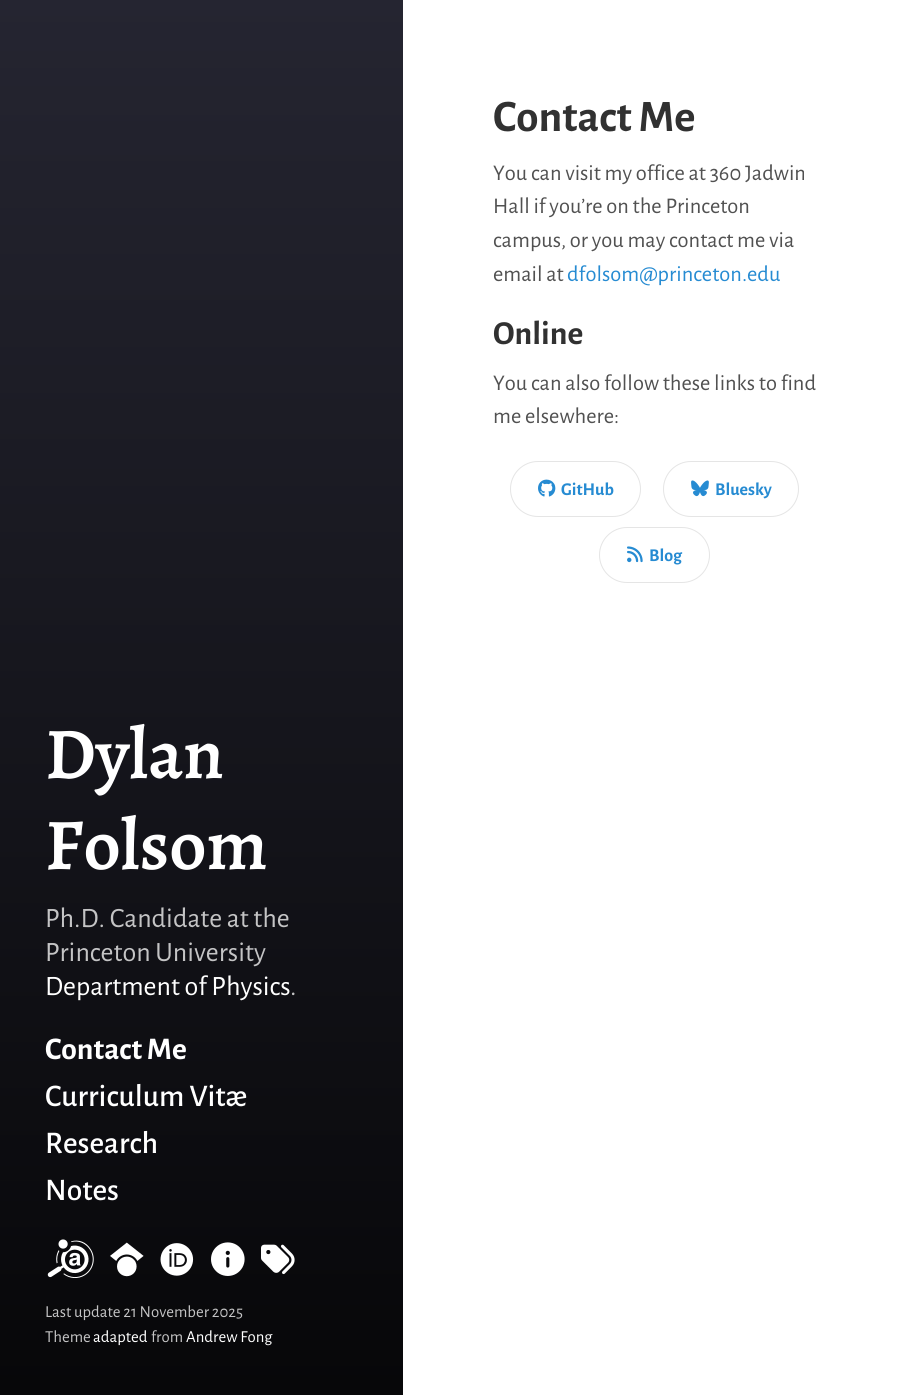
import math
import cairo


def use_color(cr, r, g, b):
  cr.set_source_rgb(r / 255, g / 255, b / 255)

def text(cr, x, y, s, family, size, color, bold=False, italic=False):
  cr.select_font_face(family, cairo.FONT_SLANT_ITALIC if italic else cairo.FONT_SLANT_NORMAL, cairo.FONT_WEIGHT_BOLD if bold else cairo.FONT_WEIGHT_NORMAL)
  cr.set_font_size(size)
  use_color(cr, *color)
  cr.move_to(x, y)
  cr.show_text(s)

def round_rect(cr, x, y, w, h, r):
  cr.new_sub_path()
  for i, (u, v) in enumerate([(x + w - r, y + h - r), (x + r, y + h - r), (x + r, y + r), (x + w - r, y + r)]):
    cr.arc(u, v, r, i * math.pi / 2, (i + 1) * math.pi / 2)
  cr.close_path()

def picture(cr, path, x, y, w, h):
  cr.save()
  cr.set_source_surface(cairo.ImageSurface.create_from_png(path), x, y)
  cr.rectangle(x, y, w, h)
  cr.fill()
  cr.restore()

def draw(cr):
  use_color(cr, 255, 255, 255)
  cr.paint()
  gradient = cairo.LinearGradient(453, 0, 453, 1395)
  gradient.add_color_stop_rgba(0, 0.145, 0.145, 0.192, 1)
  gradient.add_color_stop_rgba(1, 0.027, 0.027, 0.035, 1)
  cr.set_source(gradient)
  cr.rectangle(0, 0, 403, 1395)
  cr.fill()
  round_rect(cr, 510.5, 461.5, 130, 55, 27.5)
  use_color(cr, 229, 229, 229)
  cr.set_line_width(1)
  cr.stroke()
  picture(cr, "img_01.png", 538, 479, 18, 18)
  round_rect(cr, 663.5, 461.5, 135, 55, 27.5)
  cr.stroke()
  picture(cr, "img_02.png", 691, 480, 18, 17)
  round_rect(cr, 599.5, 527.5, 110, 55, 27.5)
  cr.stroke()
  picture(cr, "img_03.png", 627, 546, 16, 17)
  picture(cr, "img_04.png", 47, 1239, 47, 39)
  picture(cr, "img_05.png", 110, 1242, 34, 35)
  picture(cr, "img_06.png", 160, 1243, 34, 33)
  picture(cr, "img_07.png", 211, 1242, 34, 34)
  picture(cr, "img_08.png", 261, 1244, 34, 31)
  text(cr, 493, 131, "Contact Me", "Alegreya Sans", 45, (49, 49, 49), bold=True)
  text(cr, 493, 180, "You can visit my office at 360 Jadwin", "Alegreya Sans", 22.4, (81, 81, 81))
  text(cr, 493, 213, "Hall if you’re on the Princeton", "Alegreya Sans", 22.4, (81, 81, 81))
  text(cr, 493, 247, "campus, or you may contact me via", "Alegreya Sans", 22.4, (81, 81, 81))
  text(cr, 493, 281, "email at", "Alegreya Sans", 22.4, (81, 81, 81))
  text(cr, 567, 281, "dfolsom@princeton.edu", "Alegreya Sans", 22.4, (38, 139, 210))
  text(cr, 493, 344, "Online", "Alegreya Sans", 33.5, (49, 49, 49), bold=True)
  text(cr, 493, 390, "You can also follow these links to find", "Alegreya Sans", 22.4, (81, 81, 81))
  text(cr, 493, 423, "me elsewhere:", "Alegreya Sans", 22.4, (81, 81, 81))
  text(cr, 561, 495, "GitHub", "Alegreya Sans", 18, (38, 139, 210), bold=True)
  text(cr, 715, 495, "Bluesky", "Alegreya Sans", 18, (38, 139, 210), bold=True)
  text(cr, 649, 561, "Blog", "Alegreya Sans", 18, (38, 139, 210), bold=True)
  text(cr, 45, 778, "Dylan", "Alegreya SemiBold", 73, (255, 255, 255))
  text(cr, 45, 869, "Folsom", "Alegreya SemiBold", 73, (255, 255, 255))
  text(cr, 45, 927, "Ph.D. Candidate at the", "Alegreya Sans", 28, (196, 196, 197))
  text(cr, 45, 961, "Princeton University", "Alegreya Sans", 28, (196, 196, 197))
  text(cr, 45, 995, "Department of Physics", "Alegreya Sans", 28, (255, 255, 255))
  text(cr, 290, 995, ".", "Alegreya Sans", 28, (196, 196, 197))
  text(cr, 45, 1059, "Contact Me", "Alegreya Sans", 31.5, (255, 255, 255), bold=True)
  text(cr, 45, 1106, "Curriculum Vitæ", "Alegreya Sans Medium", 31.5, (255, 255, 255))
  text(cr, 45, 1153, "Research", "Alegreya Sans Medium", 31.5, (255, 255, 255))
  text(cr, 45, 1200, "Notes", "Alegreya Sans Medium", 31.5, (255, 255, 255))
  text(cr, 45, 1317, "Last update 21 November 2025", "Alegreya Sans", 16.75, (196, 196, 197))
  text(cr, 45, 1342, "Theme", "Alegreya Sans", 16.75, (196, 196, 197))
  text(cr, 93, 1342, "adapted", "Alegreya Sans", 16.75, (255, 255, 255))
  text(cr, 151, 1342, "from", "Alegreya Sans", 16.75, (196, 196, 197))
  text(cr, 186, 1342, "Andrew Fong", "Alegreya Sans", 16.75, (255, 255, 255))


surface = cairo.ImageSurface(cairo.FORMAT_RGB24, 906, 1395)
cr = cairo.Context(surface)
options = cairo.FontOptions()
options.set_hint_metrics(cairo.HINT_METRICS_OFF)
options.set_hint_style(cairo.HINT_STYLE_NONE)
cr.set_font_options(options)
cr.set_miter_limit(4)
draw(cr)
surface.write_to_png("out.png")
